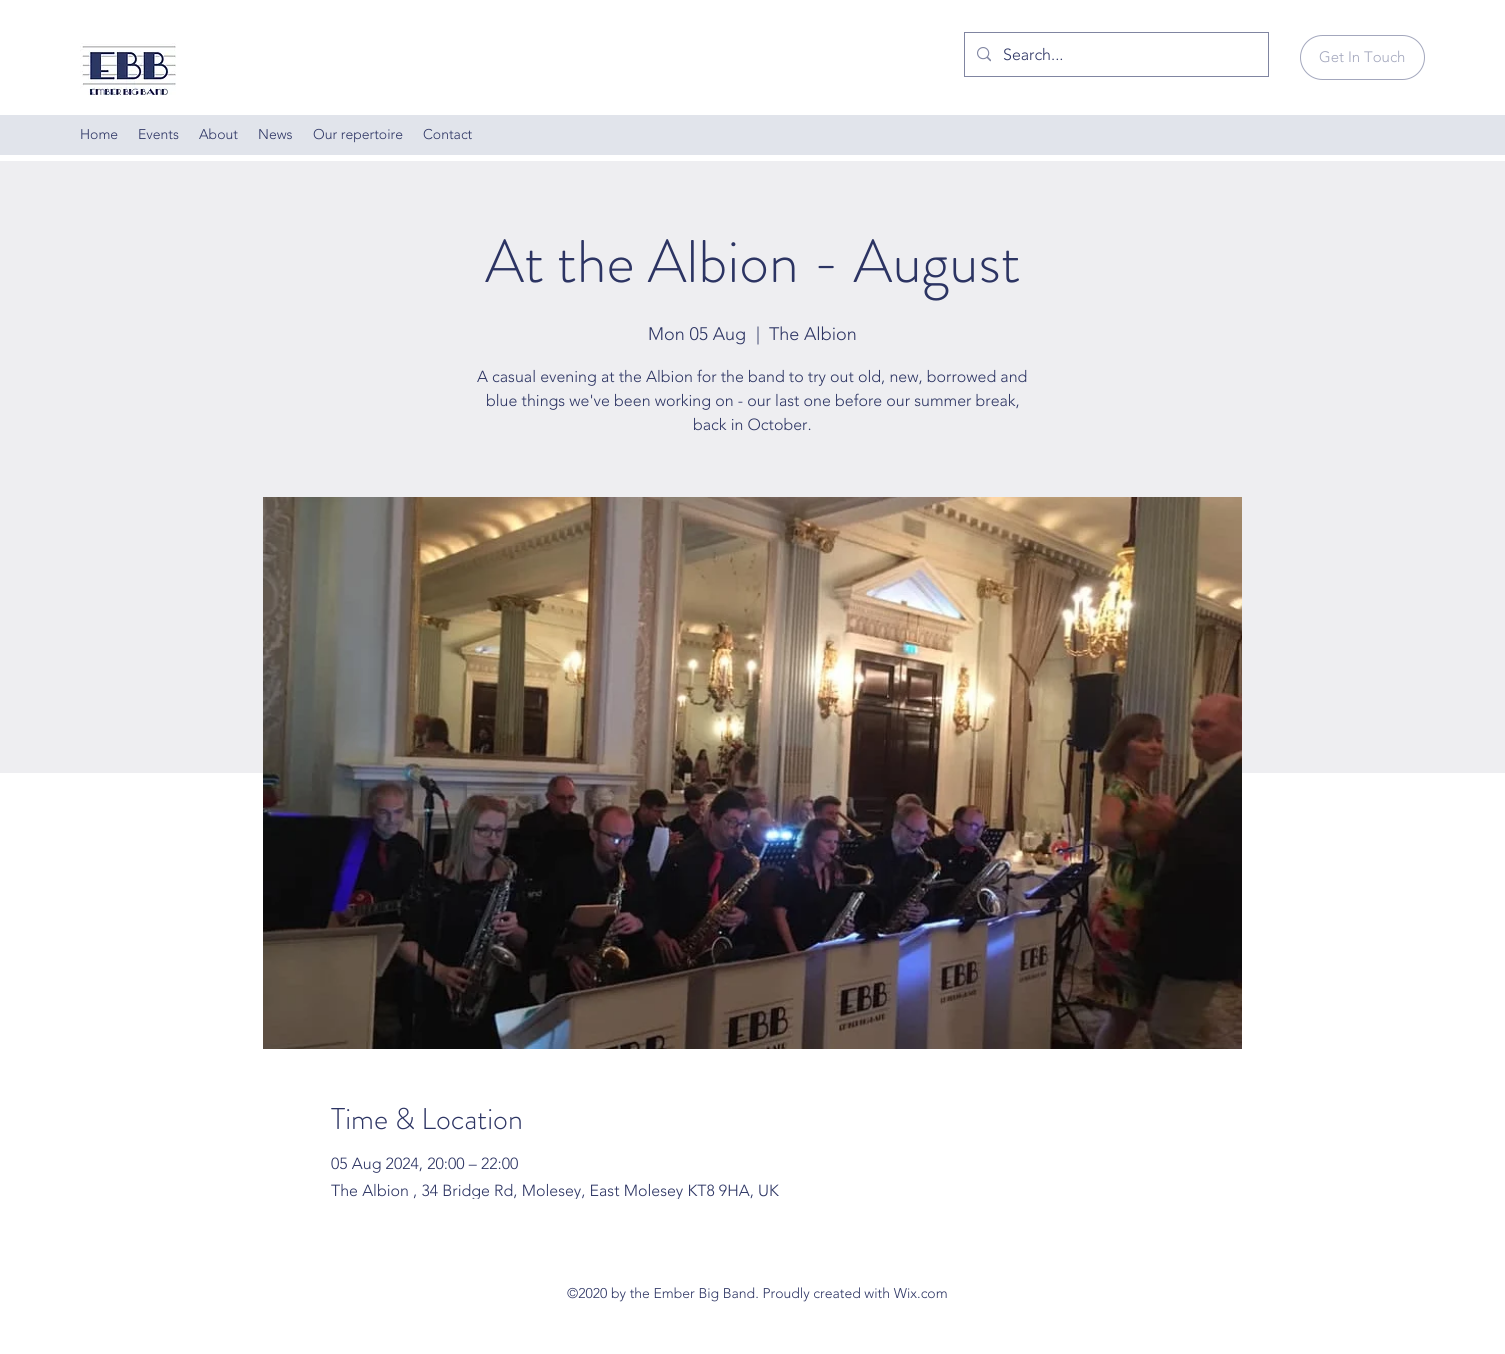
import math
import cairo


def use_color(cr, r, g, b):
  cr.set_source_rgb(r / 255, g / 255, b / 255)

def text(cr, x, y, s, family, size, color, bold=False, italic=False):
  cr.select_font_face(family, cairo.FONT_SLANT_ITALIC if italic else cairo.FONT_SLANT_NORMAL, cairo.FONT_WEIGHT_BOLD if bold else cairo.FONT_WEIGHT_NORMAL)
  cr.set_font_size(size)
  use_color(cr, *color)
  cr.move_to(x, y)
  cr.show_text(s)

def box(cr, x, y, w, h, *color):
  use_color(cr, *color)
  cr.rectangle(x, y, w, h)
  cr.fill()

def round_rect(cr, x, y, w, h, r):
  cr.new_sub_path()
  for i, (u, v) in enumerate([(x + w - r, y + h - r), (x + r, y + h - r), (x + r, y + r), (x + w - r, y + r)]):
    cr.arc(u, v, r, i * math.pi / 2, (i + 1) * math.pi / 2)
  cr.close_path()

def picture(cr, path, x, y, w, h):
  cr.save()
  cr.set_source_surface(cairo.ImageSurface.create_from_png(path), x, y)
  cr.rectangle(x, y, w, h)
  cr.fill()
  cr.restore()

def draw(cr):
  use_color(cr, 255, 255, 255)
  cr.paint()
  picture(cr, "img_01.png", 80, 43, 96, 53)
  cr.rectangle(964.5, 32.5, 304, 44)
  use_color(cr, 128, 133, 161)
  cr.set_line_width(1)
  cr.stroke()
  picture(cr, "img_02.png", 977, 47, 14, 15)
  round_rect(cr, 1300.5, 35.5, 124, 44, 22)
  use_color(cr, 163, 167, 189)
  cr.stroke()
  box(cr, 0, 115, 1505, 40, 225, 228, 235)
  box(cr, 0, 161, 1505, 612, 238, 238, 241)
  picture(cr, "img_03.png", 263, 497, 979, 552)
  text(cr, 1003, 60, "Search...", "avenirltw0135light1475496 Light", 16, (44, 52, 99))
  text(cr, 1319, 62, "Get In Touch", "avenirltw0135light1475496 Light", 15, (163, 167, 189))
  text(cr, 80, 139, "Home", "avenirltw0135light1475496 Light", 14, (44, 52, 99))
  text(cr, 138, 139, "Events", "avenirltw0135light1475496 Light", 14, (44, 52, 99))
  text(cr, 199, 139, "About", "avenirltw0135light1475496 Light", 14, (44, 52, 99))
  text(cr, 258, 139, "News", "avenirltw0135light1475496 Light", 14, (44, 52, 99))
  text(cr, 313, 139, "Our repertoire", "avenirltw0135light1475496 Light", 14, (44, 52, 99))
  text(cr, 423, 139, "Contact", "avenirltw0135light1475496 Light", 14, (44, 52, 99))
  text(cr, 485, 282, "At the Albion - August", "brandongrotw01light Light", 60, (44, 52, 99))
  text(cr, 648, 340, "Mon 05 Aug", "avenirltw0135light1475496 Light", 18, (44, 52, 99))
  text(cr, 756, 340, "|", "avenirltw0135light1475496 Light", 18, (44, 52, 99))
  text(cr, 769, 340, "The Albion", "avenirltw0135light1475496 Light", 18, (44, 52, 99))
  text(cr, 477, 382, "A casual evening at the Albion for the band to try out old, new, borrowed and", "avenirltw0135light1475496 Light", 16, (44, 52, 99))
  text(cr, 486, 406, "blue things we've been working on - our last one before our summer break,", "avenirltw0135light1475496 Light", 16, (44, 52, 99))
  text(cr, 693, 430, "back in October.", "avenirltw0135light1475496 Light", 16, (44, 52, 99))
  text(cr, 331, 1129, "Time & Location", "brandongrotw01light Light", 30, (44, 52, 99))
  text(cr, 331, 1169, "05 Aug 2024, 20:00 – 22:00", "avenirltw0135light1475496 Light", 16, (44, 52, 99))
  text(cr, 331, 1196, "The Albion , 34 Bridge Rd, Molesey, East Molesey KT8 9HA, UK", "avenirltw0135light1475496 Light", 16, (44, 52, 99))
  cr.set_source_rgba(1, 1, 1, 0.15)
  cr.rectangle(414, 1198, 338, 1)
  cr.fill()
  box(cr, 473, 1199, 206, 1, 255, 255, 255)
  text(cr, 567, 1298, "©2020 by the Ember Big Band. Proudly created with Wix.com", "avenirltw0135light1475496 Light", 14, (44, 52, 99))


surface = cairo.ImageSurface(cairo.FORMAT_RGB24, 1505, 1354)
cr = cairo.Context(surface)
options = cairo.FontOptions()
options.set_hint_metrics(cairo.HINT_METRICS_OFF)
options.set_hint_style(cairo.HINT_STYLE_NONE)
cr.set_font_options(options)
cr.set_miter_limit(4)
draw(cr)
surface.write_to_png("out.png")
